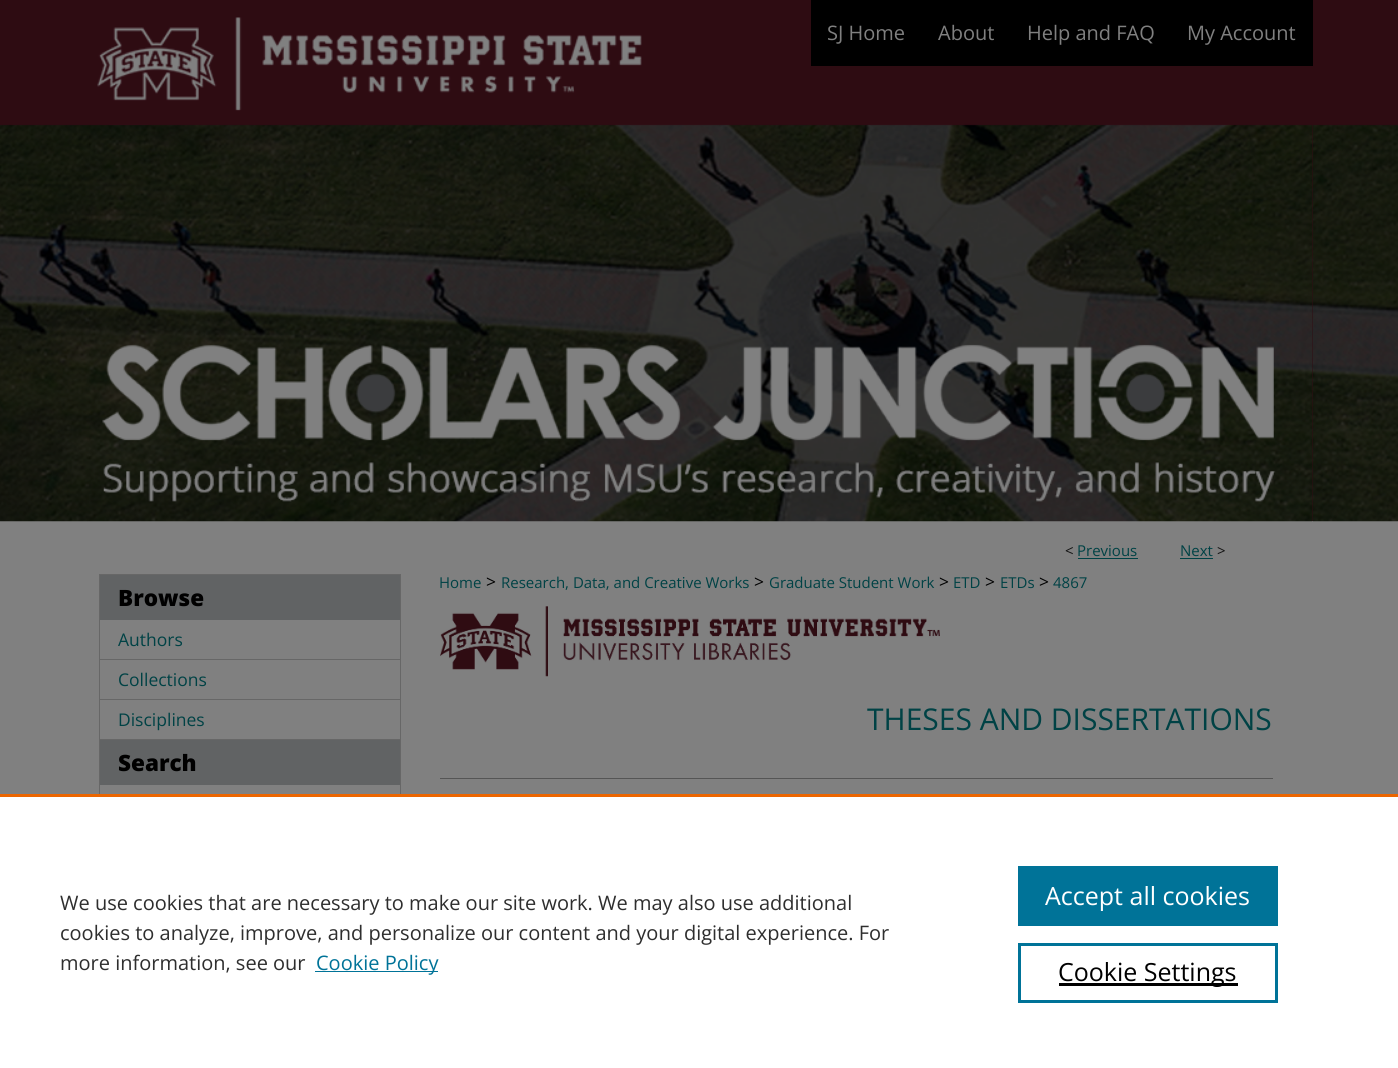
import math
import cairo


def use_color(cr, r, g, b):
  cr.set_source_rgb(r / 255, g / 255, b / 255)

def text(cr, x, y, s, family, size, color, bold=False, italic=False):
  cr.select_font_face(family, cairo.FONT_SLANT_ITALIC if italic else cairo.FONT_SLANT_NORMAL, cairo.FONT_WEIGHT_BOLD if bold else cairo.FONT_WEIGHT_NORMAL)
  cr.set_font_size(size)
  use_color(cr, *color)
  cr.move_to(x, y)
  cr.show_text(s)

def box(cr, x, y, w, h, *color):
  use_color(cr, *color)
  cr.rectangle(x, y, w, h)
  cr.fill()

def picture(cr, path, x, y, w, h):
  cr.save()
  cr.set_source_surface(cairo.ImageSurface.create_from_png(path), x, y)
  cr.rectangle(x, y, w, h)
  cr.fill()
  cr.restore()

def draw(cr):
  use_color(cr, 128, 128, 128)
  cr.paint()
  picture(cr, "img_01.png", 0, 0, 1398, 522)
  box(cr, 88, 17, 1225, 504, 47, 12, 19)
  box(cr, 88, 521, 1225, 1, 128, 128, 128)
  box(cr, 87, 521, 1, 1, 111, 111, 110)
  picture(cr, "img_02.png", 87, 17, 1226, 505)
  box(cr, 109, 124, 39, 1, 46, 12, 19)
  box(cr, 811, 0, 502, 66, 0, 0, 0)
  box(cr, 100, 575, 300, 45, 97, 99, 100)
  box(cr, 100, 659, 300, 1, 103, 103, 103)
  box(cr, 100, 699, 300, 1, 103, 103, 103)
  box(cr, 100, 739, 300, 1, 103, 103, 103)
  box(cr, 100, 740, 300, 45, 97, 99, 100)
  cr.rectangle(99.5, 574.5, 301, 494)
  use_color(cr, 103, 103, 103)
  cr.set_line_width(1)
  cr.stroke()
  box(cr, 1078, 558, 60, 1, 0, 66, 69)
  box(cr, 1180, 558, 33, 1, 0, 66, 69)
  picture(cr, "img_03.png", 440, 606, 500, 71)
  box(cr, 440, 778, 833, 1, 85, 85, 85)
  box(cr, 0, 797, 1398, 271, 255, 255, 255)
  box(cr, 0, 794, 1398, 3, 235, 101, 0)
  box(cr, 315, 971, 123, 1, 0, 115, 152)
  box(cr, 1018, 866, 260, 60, 0, 115, 152)
  cr.rectangle(1019.5, 944.5, 257, 57)
  cr.set_line_width(3)
  cr.stroke()
  box(cr, 1059, 983, 179, 3, 0, 0, 0)
  text(cr, 827, 40, "SJ Home", "Open Sans", 20, (128, 128, 128))
  text(cr, 938, 40, "About", "Open Sans", 20, (128, 128, 128))
  text(cr, 1027, 40, "Help and FAQ", "Open Sans", 20, (128, 128, 128))
  text(cr, 1187, 40, "My Account", "Open Sans", 20, (128, 128, 128))
  text(cr, 118, 606, "Browse", "Open Sans ExtraBold", 22.5, (0, 0, 0))
  text(cr, 118, 646, "Authors", "Open Sans", 17.5, (0, 66, 69))
  text(cr, 118, 686, "Collections", "Open Sans", 17.5, (0, 66, 69))
  text(cr, 118, 726, "Disciplines", "Open Sans", 17.5, (0, 66, 69))
  text(cr, 118, 771, "Search", "Open Sans ExtraBold", 22.5, (0, 0, 0))
  text(cr, 1065, 556, "<", "Open Sans", 15, (17, 17, 17))
  text(cr, 1077, 556, "Previous", "Open Sans", 15, (0, 66, 69))
  text(cr, 1180, 556, "Next", "Open Sans", 15, (0, 66, 69))
  text(cr, 1217, 556, ">", "Open Sans", 15, (17, 17, 17))
  text(cr, 439, 588, "Home", "Open Sans", 15, (0, 66, 69))
  text(cr, 486, 588, ">", "Open Sans", 17.5, (0, 0, 0))
  text(cr, 501, 588, "Research, Data, and Creative Works", "Open Sans", 15, (0, 66, 69))
  text(cr, 754, 588, ">", "Open Sans", 17.5, (0, 0, 0))
  text(cr, 769, 588, "Graduate Student Work", "Open Sans", 15, (0, 66, 69))
  text(cr, 939, 588, ">", "Open Sans", 17.5, (0, 0, 0))
  text(cr, 953, 588, "ETD", "Open Sans", 15, (0, 66, 69))
  text(cr, 985, 588, ">", "Open Sans", 17.5, (0, 0, 0))
  text(cr, 1000, 588, "ETDs", "Open Sans", 15, (0, 66, 69))
  text(cr, 1039, 588, ">", "Open Sans", 17.5, (0, 0, 0))
  text(cr, 1053, 588, "4867", "Open Sans", 15, (0, 66, 69))
  text(cr, 867, 730, "THESES AND DISSERTATIONS", "Open Sans", 30, (0, 66, 69))
  text(cr, 60, 910, "We use cookies that are necessary to make our site work. We may also use additional", "Open Sans", 20, (46, 46, 46))
  text(cr, 60, 940, "cookies to analyze, improve, and personalize our content and your digital experience. For", "Open Sans", 20, (46, 46, 46))
  text(cr, 60, 970, "more information, see our", "Open Sans", 20, (46, 46, 46))
  text(cr, 316, 970, "Cookie Policy", "Open Sans", 20, (0, 115, 152))
  text(cr, 1045, 905, "Accept all cookies", "Open Sans", 25, (255, 255, 255))
  text(cr, 1058, 981, "Cookie Settings", "Open Sans", 25, (0, 0, 0))


surface = cairo.ImageSurface(cairo.FORMAT_RGB24, 1398, 1068)
cr = cairo.Context(surface)
options = cairo.FontOptions()
options.set_hint_metrics(cairo.HINT_METRICS_OFF)
options.set_hint_style(cairo.HINT_STYLE_NONE)
cr.set_font_options(options)
cr.set_miter_limit(4)
draw(cr)
surface.write_to_png("out.png")
